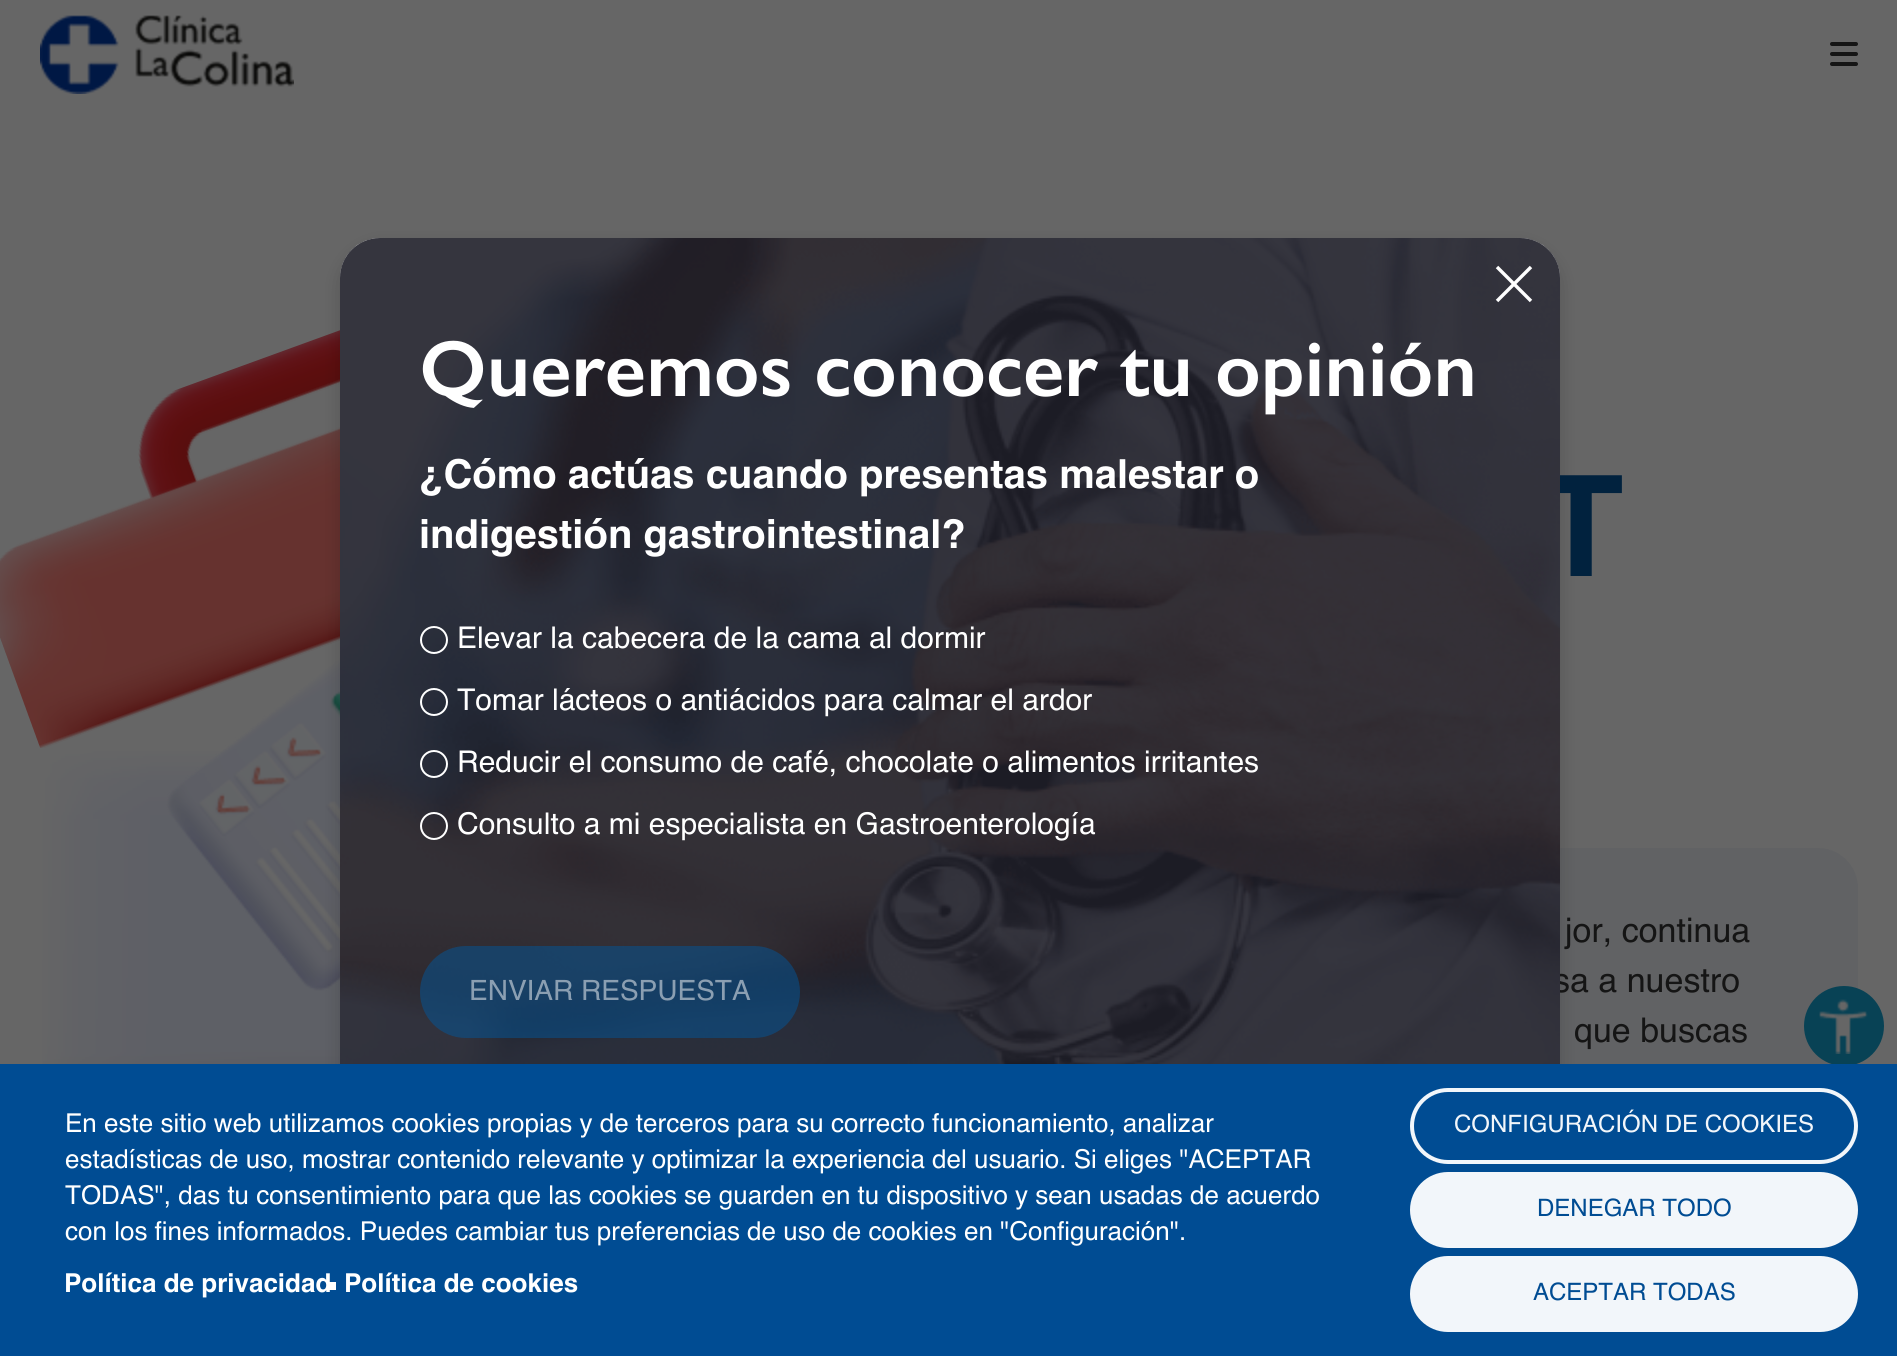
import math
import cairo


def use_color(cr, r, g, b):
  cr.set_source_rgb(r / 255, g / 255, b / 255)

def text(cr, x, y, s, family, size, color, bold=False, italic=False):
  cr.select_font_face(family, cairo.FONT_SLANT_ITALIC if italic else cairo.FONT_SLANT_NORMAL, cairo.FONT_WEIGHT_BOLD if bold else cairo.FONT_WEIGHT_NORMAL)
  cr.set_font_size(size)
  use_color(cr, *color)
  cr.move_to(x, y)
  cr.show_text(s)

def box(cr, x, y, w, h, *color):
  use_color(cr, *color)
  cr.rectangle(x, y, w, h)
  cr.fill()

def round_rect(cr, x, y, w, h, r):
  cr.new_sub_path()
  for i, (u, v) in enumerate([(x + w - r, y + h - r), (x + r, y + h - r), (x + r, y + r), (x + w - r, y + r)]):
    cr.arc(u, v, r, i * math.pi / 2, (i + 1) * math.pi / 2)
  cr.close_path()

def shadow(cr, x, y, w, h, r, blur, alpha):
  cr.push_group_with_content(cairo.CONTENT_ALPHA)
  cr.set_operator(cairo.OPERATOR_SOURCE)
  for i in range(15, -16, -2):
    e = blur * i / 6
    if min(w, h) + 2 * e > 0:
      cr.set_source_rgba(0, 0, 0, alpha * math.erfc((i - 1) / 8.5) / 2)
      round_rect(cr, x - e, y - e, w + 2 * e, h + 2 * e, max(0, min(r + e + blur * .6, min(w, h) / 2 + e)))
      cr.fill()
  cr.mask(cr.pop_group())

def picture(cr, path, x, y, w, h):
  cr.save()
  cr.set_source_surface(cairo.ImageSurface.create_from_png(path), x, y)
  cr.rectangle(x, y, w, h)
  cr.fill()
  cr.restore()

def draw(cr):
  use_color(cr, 102, 102, 102)
  cr.paint()
  picture(cr, "img_01.png", 40, 15, 254, 79)
  picture(cr, "img_02.png", 1830, 42, 28, 24)
  picture(cr, "img_05.png", 42, 747, 298, 317)
  picture(cr, "img_04.png", 0, 330, 340, 418)
  picture(cr, "img_06.png", 166, 656, 174, 335)
  use_color(cr, 97, 98, 100)
  round_rect(cr, 822, 848, 1036, 360, 40)
  cr.fill()
  use_color(cr, 0, 0, 0)
  shadow(cr, 340, 246, 1220, 880, 40, 10, 0.15)
  use_color(cr, 8, 66, 85)
  cr.arc(1844, 1026, 39, 0, 2 * math.pi)
  cr.fill_preserve()
  cr.stroke()
  picture(cr, "img_07.png", 1819, 999, 49, 55)
  text(cr, 1538, 576, "T", "Helvetica", 140, (1, 34, 62), bold=True)
  text(cr, 1565, 942, "jor, continua", "Helvetica", 34, (21, 21, 21))
  text(cr, 1553, 992, "sa a nuestro", "Helvetica", 34, (21, 21, 21))
  picture(cr, "img_03.png", 340, 238, 1220, 826)
  cr.set_source_rgba(0.122, 0.122, 0.161, 0.9)
  round_rect(cr, 340, 238, 1220, 880, 40)
  cr.fill()
  cr.new_path()
  cr.move_to(1497, 301)
  cr.line_to(1531, 267)
  cr.move_to(1497, 267)
  cr.line_to(1531, 301)
  use_color(cr, 255, 255, 255)
  cr.set_line_width(3.4)
  cr.stroke()
  cr.set_source_rgba(0.008, 0.337, 0.604, 0.5)
  round_rect(cr, 420, 946, 380, 92, 46)
  cr.fill()
  text(cr, 469, 1000, "ENVIAR RESPUESTA", "Helvetica", 28, (139, 159, 178))
  cr.new_path()
  cr.arc(434, 826, 13, 0, 2 * math.pi)
  use_color(cr, 255, 255, 255)
  cr.set_line_width(2)
  cr.stroke()
  text(cr, 457, 834, "Consulto a mi especialista en Gastroenterología", "Helvetica", 30, (255, 255, 255))
  cr.new_path()
  cr.arc(434, 764, 13, 0, 2 * math.pi)
  cr.stroke()
  text(cr, 457, 772, "Reducir el consumo de café, chocolate o alimentos irritantes", "Helvetica", 30, (255, 255, 255))
  cr.new_path()
  cr.arc(434, 702, 13, 0, 2 * math.pi)
  cr.stroke()
  text(cr, 457, 710, "Tomar lácteos o antiácidos para calmar el ardor", "Helvetica", 30, (255, 255, 255))
  cr.new_path()
  cr.arc(434, 640, 13, 0, 2 * math.pi)
  cr.stroke()
  text(cr, 457, 648, "Elevar la cabecera de la cama al dormir", "Helvetica", 30, (255, 255, 255))
  text(cr, 419, 548, "indigestión gastrointestinal?", "Helvetica", 40, (255, 255, 255), bold=True)
  text(cr, 419, 488, "¿Cómo actúas cuando presentas malestar o", "Helvetica", 40, (255, 255, 255), bold=True)
  text(cr, 419, 396, "Queremos conocer tu opinión", "Gill Sans SemiBold", 80, (255, 255, 255))
  text(cr, 1574, 1042, "que buscas", "Helvetica", 34, (21, 21, 21))
  box(cr, 0, 1064, 1897, 292, 0, 76, 147)
  text(cr, 65, 1132, "En este sitio web utilizamos cookies propias y de terceros para su correcto funcionamiento, analizar", "Helvetica", 26, (255, 255, 255))
  text(cr, 65, 1168, "estadísticas de uso, mostrar contenido relevante y optimizar la experiencia del usuario. Si eliges \"ACEPTAR", "Helvetica", 26, (255, 255, 255))
  text(cr, 65, 1204, "TODAS\", das tu consentimiento para que las cookies se guarden en tu dispositivo y sean usadas de acuerdo", "Helvetica", 26, (255, 255, 255))
  text(cr, 65, 1240, "con los fines informados. Puedes cambiar tus preferencias de uso de cookies en \"Configuración\".", "Helvetica", 26, (255, 255, 255))
  text(cr, 64, 1292, "Política de privacidad", "Helvetica", 26, (255, 255, 255), bold=True)
  box(cr, 328, 1282, 8, 8, 255, 255, 255)
  text(cr, 344, 1292, "Política de cookies", "Helvetica", 26, (255, 255, 255), bold=True)
  round_rect(cr, 1412, 1090, 444, 72, 36)
  use_color(cr, 242, 246, 250)
  cr.set_line_width(4)
  cr.stroke()
  text(cr, 1454, 1132, "CONFIGURACIÓN DE COOKIES", "Helvetica", 24, (242, 246, 250))
  round_rect(cr, 1412, 1174, 444, 72, 36)
  cr.fill_preserve()
  cr.stroke()
  text(cr, 1537, 1216, "DENEGAR TODO", "Helvetica", 24, (0, 76, 147))
  use_color(cr, 242, 246, 250)
  round_rect(cr, 1412, 1258, 444, 72, 36)
  cr.fill_preserve()
  cr.stroke()
  text(cr, 1533, 1300, "ACEPTAR TODAS", "Helvetica", 24, (0, 76, 147))


surface = cairo.ImageSurface(cairo.FORMAT_RGB24, 1897, 1356)
cr = cairo.Context(surface)
options = cairo.FontOptions()
options.set_hint_metrics(cairo.HINT_METRICS_OFF)
options.set_hint_style(cairo.HINT_STYLE_NONE)
cr.set_font_options(options)
cr.set_miter_limit(4)
draw(cr)
surface.write_to_png("out.png")
